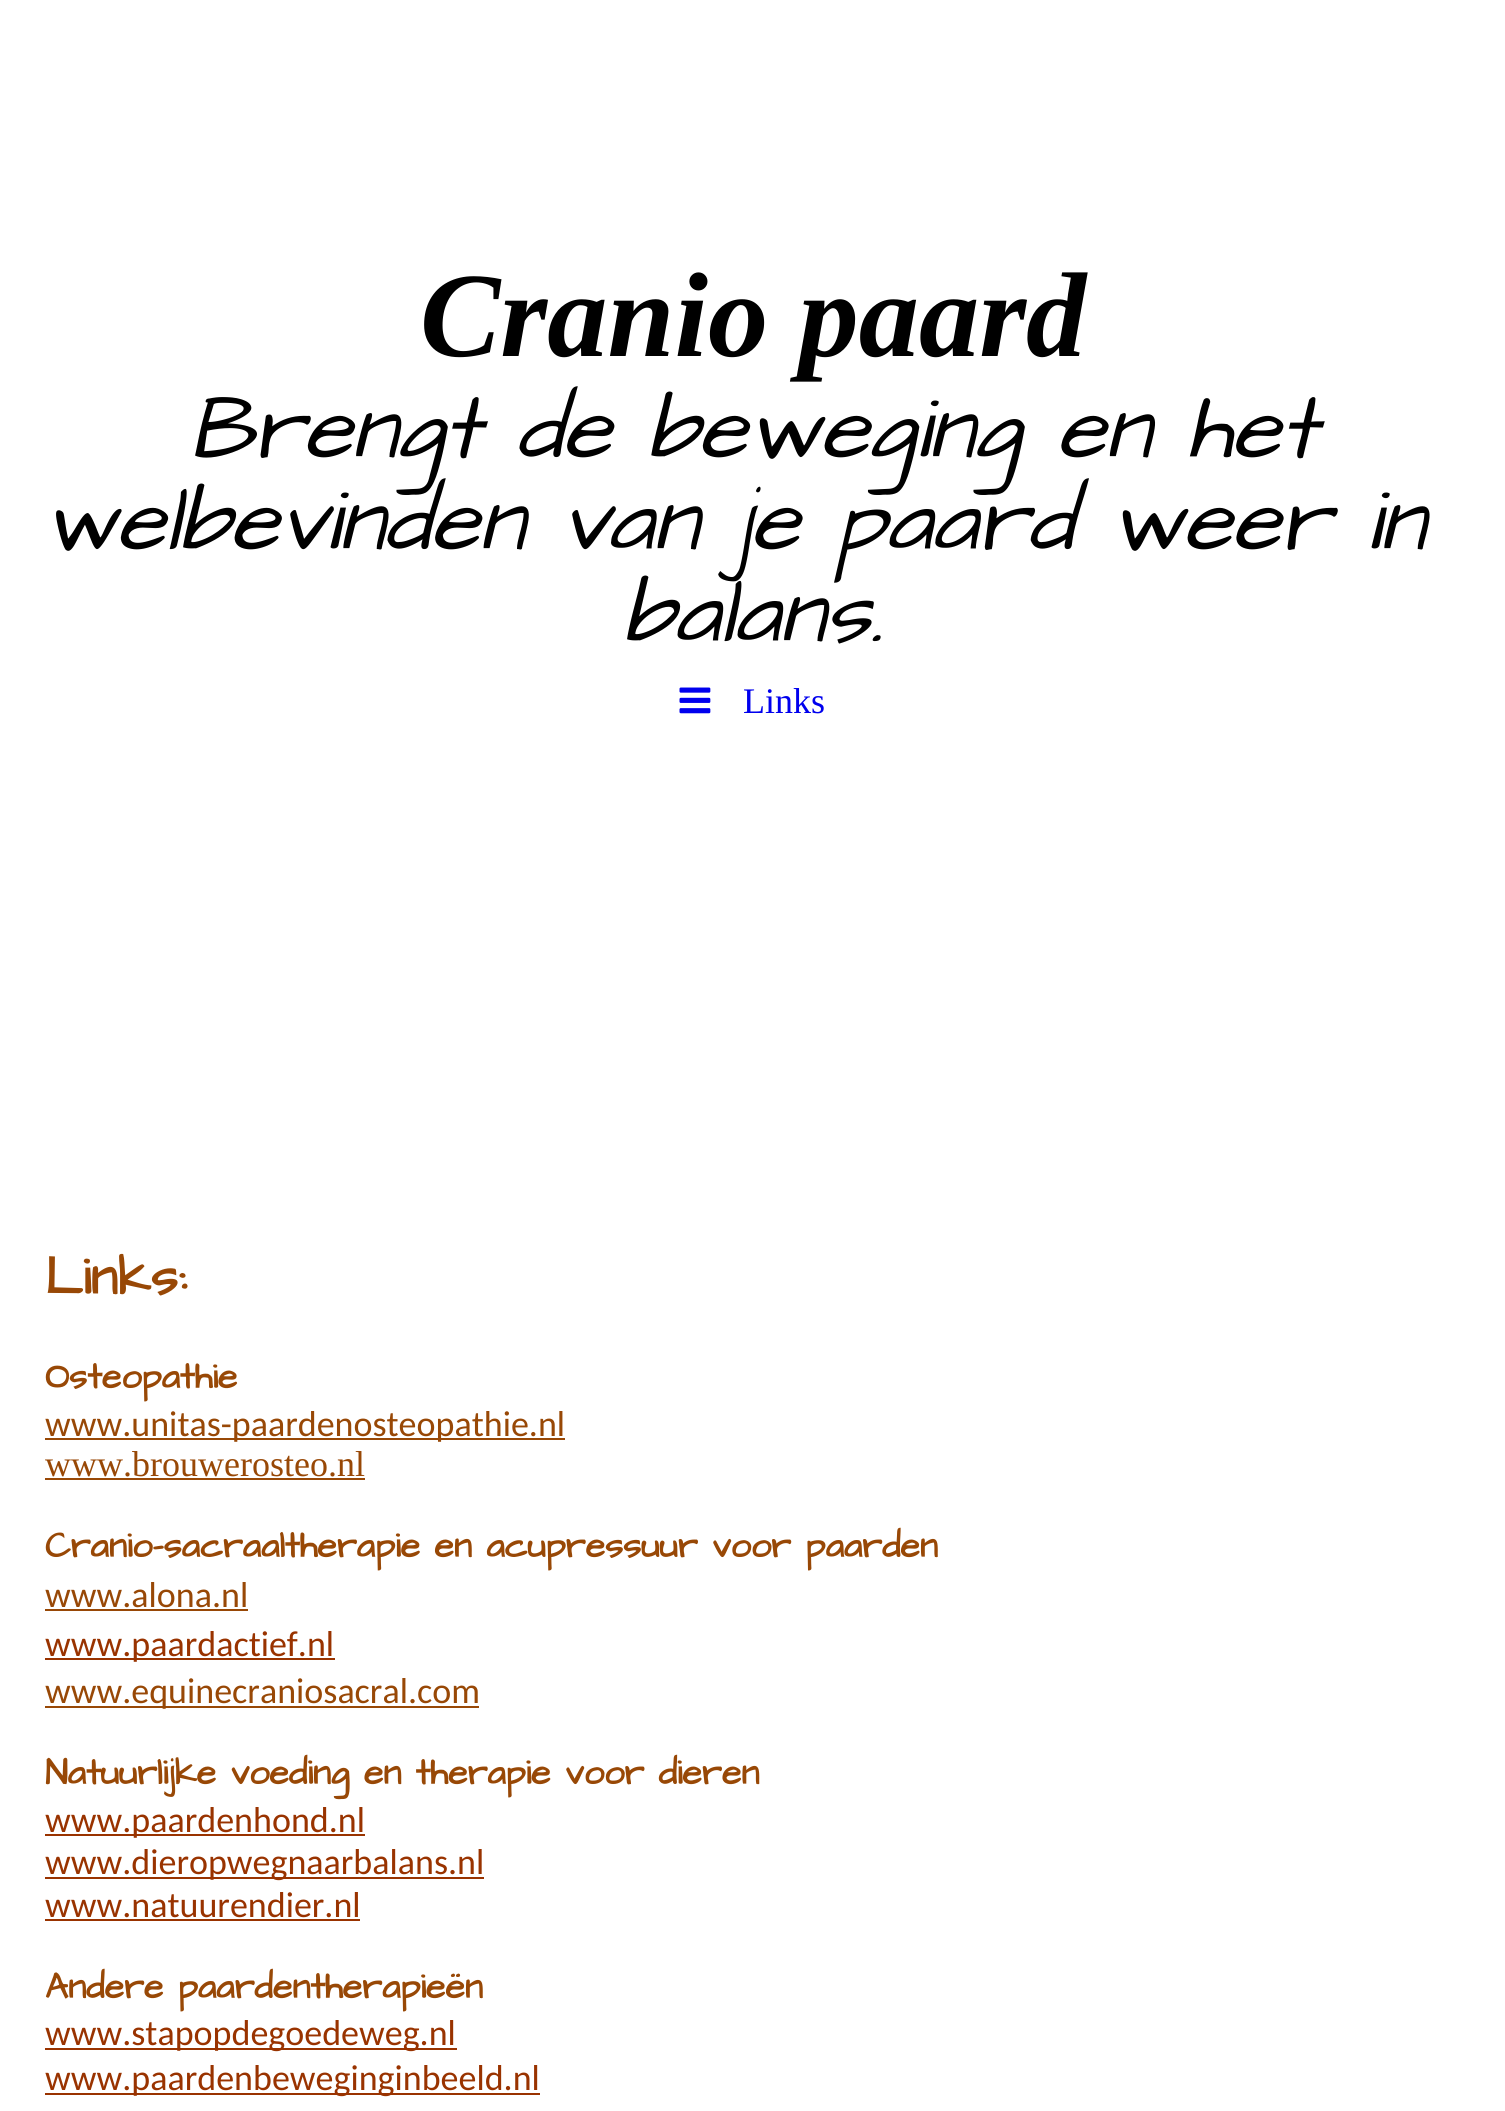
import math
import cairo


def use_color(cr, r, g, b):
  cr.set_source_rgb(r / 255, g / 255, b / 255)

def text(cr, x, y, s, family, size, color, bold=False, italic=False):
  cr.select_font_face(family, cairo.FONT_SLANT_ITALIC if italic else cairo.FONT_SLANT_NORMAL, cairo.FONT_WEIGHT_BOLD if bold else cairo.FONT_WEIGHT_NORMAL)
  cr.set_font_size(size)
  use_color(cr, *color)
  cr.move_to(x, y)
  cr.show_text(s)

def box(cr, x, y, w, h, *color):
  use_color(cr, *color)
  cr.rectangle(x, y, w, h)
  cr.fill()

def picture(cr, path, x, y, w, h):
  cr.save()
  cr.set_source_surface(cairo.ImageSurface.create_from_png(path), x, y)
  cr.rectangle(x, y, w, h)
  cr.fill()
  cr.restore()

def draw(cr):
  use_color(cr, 255, 255, 255)
  cr.paint()
  picture(cr, "img_01.png", 679, 687, 32, 27)
  box(cr, 45, 1438, 520, 2, 152, 72, 6)
  box(cr, 45, 1478, 320, 2, 152, 72, 6)
  box(cr, 45, 1609, 203, 2, 152, 72, 6)
  box(cr, 45, 1658, 290, 2, 153, 51, 0)
  box(cr, 45, 1706, 434, 2, 152, 72, 6)
  box(cr, 45, 1834, 320, 2, 153, 51, 0)
  box(cr, 45, 1877, 439, 2, 153, 51, 0)
  box(cr, 45, 1919, 315, 2, 153, 51, 0)
  box(cr, 45, 2048, 412, 2, 153, 51, 0)
  box(cr, 45, 2093, 495, 2, 153, 51, 0)
  text(cr, 420, 356, "Cranio paard", "Liberation Serif", 120.5, (0, 0, 0), bold=True, italic=True)
  text(cr, 189, 457, "Brengt de beweging en het", "Architects Daughter", 90.25, (0, 0, 0), italic=True)
  text(cr, 43, 549, "welbevinden van je paard weer in", "Architects Daughter", 90.25, (0, 0, 0), italic=True)
  text(cr, 623, 641, "balans.", "Architects Daughter", 90.25, (0, 0, 0), italic=True)
  text(cr, 743, 713, "Links", "Liberation Serif", 36, (0, 0, 238))
  text(cr, 45, 1294, "Links:", "Architects Daughter", 54, (152, 72, 6), bold=True)
  text(cr, 45, 1388, "Osteopathie", "Architects Daughter", 36, (152, 72, 6), bold=True)
  text(cr, 45, 1436, "www.unitas-paardenosteopathie.nl", "Carlito", 36, (152, 72, 6))
  text(cr, 45, 1476, "www.brouwerosteo.nl", "Liberation Serif", 36, (152, 72, 6))
  text(cr, 45, 1557, "Cranio-sacraaltherapie en acupressuur voor paarden", "Architects Daughter", 36, (152, 72, 6), bold=True)
  text(cr, 45, 1607, "www.alona.nl", "Carlito", 36, (152, 72, 6))
  text(cr, 45, 1656, "www.paardactief.nl", "Carlito", 36, (153, 51, 0))
  text(cr, 45, 1703, "www.equinecraniosacral.com", "Carlito", 36, (152, 72, 6))
  text(cr, 45, 1784, "Natuurlijke voeding en therapie voor dieren", "Architects Daughter", 36, (152, 72, 6), bold=True)
  text(cr, 45, 1832, "www.paardenhond.nl", "Carlito", 36, (153, 51, 0))
  text(cr, 45, 1874, "www.dieropwegnaarbalans.nl", "Carlito", 36, (153, 51, 0))
  text(cr, 45, 1917, "www.natuurendier.nl", "Carlito", 36, (153, 51, 0))
  text(cr, 45, 1998, "Andere paardentherapieën", "Architects Daughter", 36, (152, 72, 6), bold=True)
  text(cr, 45, 2045, "www.stapopdegoedeweg.nl", "Carlito", 36, (153, 51, 0))
  text(cr, 45, 2090, "www.paardenbeweginginbeeld.nl", "Carlito", 36, (153, 51, 0))


surface = cairo.ImageSurface(cairo.FORMAT_RGB24, 1505, 2111)
cr = cairo.Context(surface)
options = cairo.FontOptions()
options.set_hint_metrics(cairo.HINT_METRICS_OFF)
options.set_hint_style(cairo.HINT_STYLE_NONE)
cr.set_font_options(options)
cr.set_miter_limit(4)
draw(cr)
surface.write_to_png("out.png")
